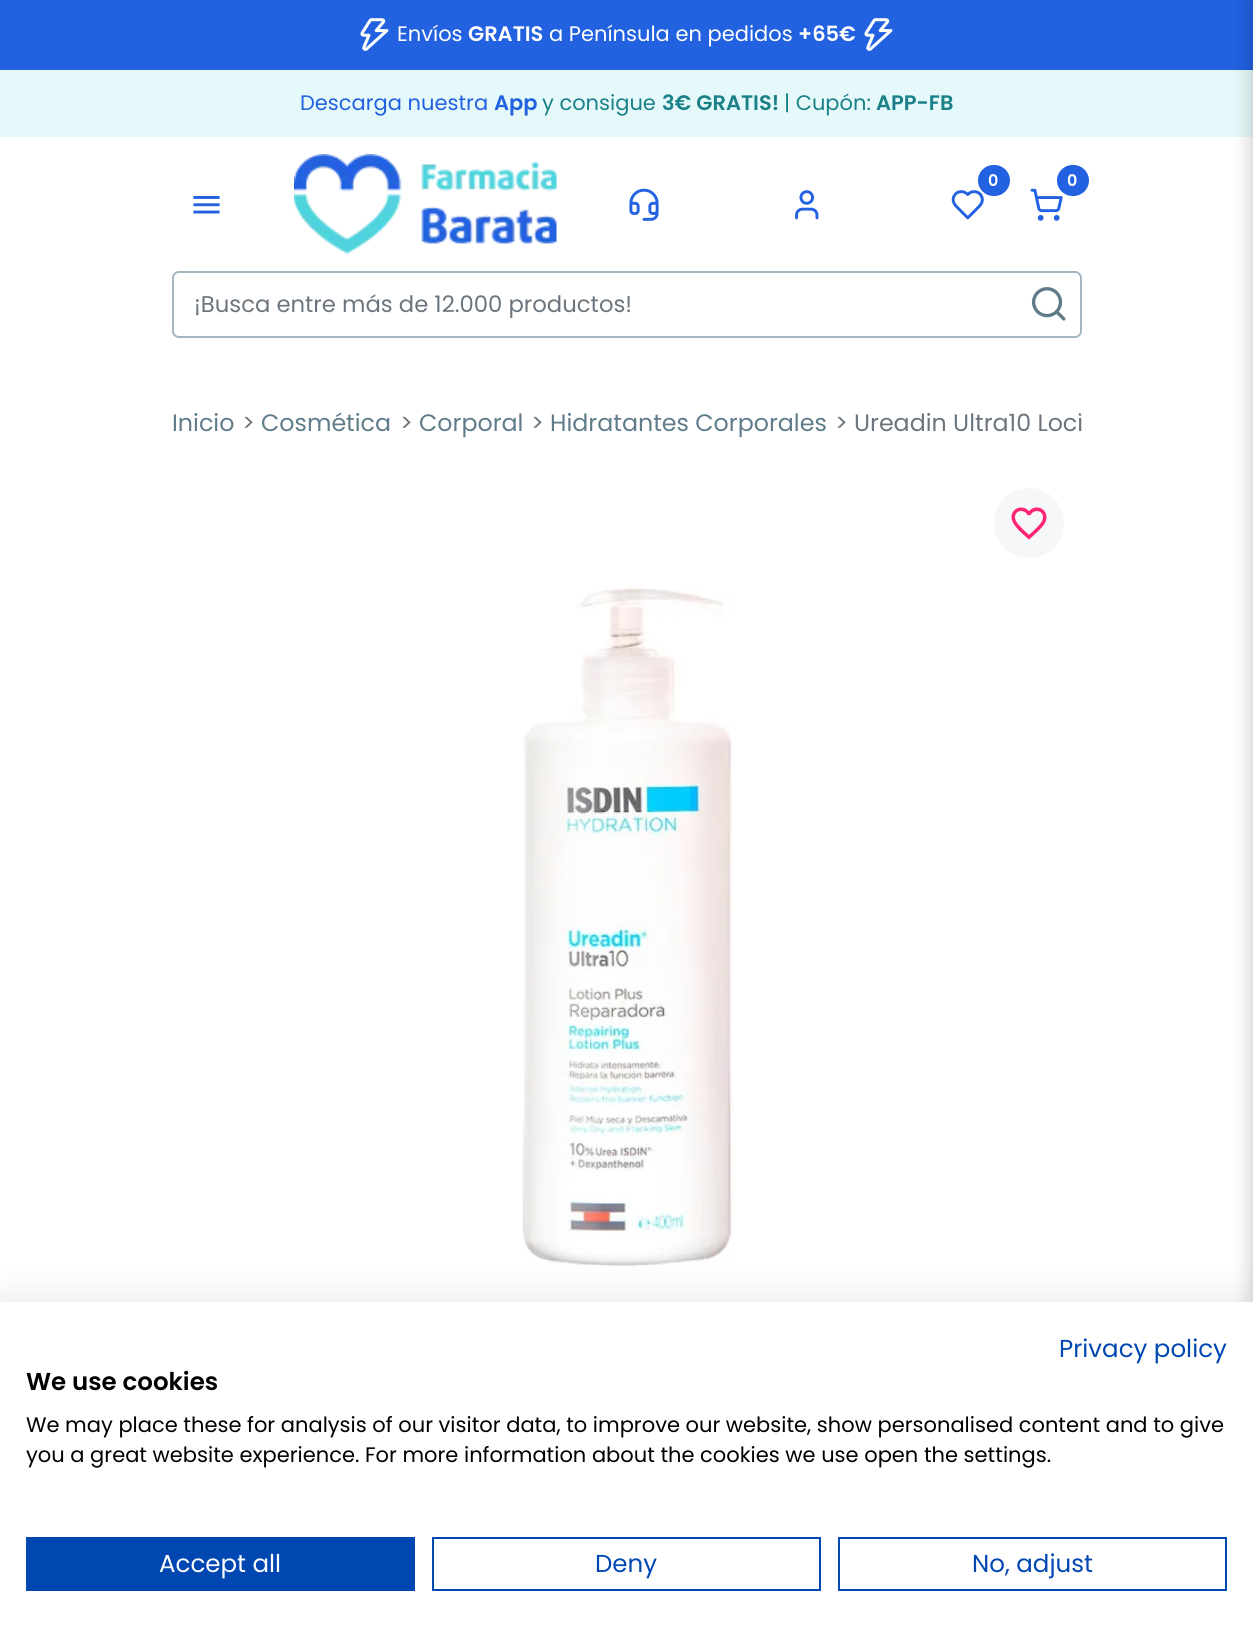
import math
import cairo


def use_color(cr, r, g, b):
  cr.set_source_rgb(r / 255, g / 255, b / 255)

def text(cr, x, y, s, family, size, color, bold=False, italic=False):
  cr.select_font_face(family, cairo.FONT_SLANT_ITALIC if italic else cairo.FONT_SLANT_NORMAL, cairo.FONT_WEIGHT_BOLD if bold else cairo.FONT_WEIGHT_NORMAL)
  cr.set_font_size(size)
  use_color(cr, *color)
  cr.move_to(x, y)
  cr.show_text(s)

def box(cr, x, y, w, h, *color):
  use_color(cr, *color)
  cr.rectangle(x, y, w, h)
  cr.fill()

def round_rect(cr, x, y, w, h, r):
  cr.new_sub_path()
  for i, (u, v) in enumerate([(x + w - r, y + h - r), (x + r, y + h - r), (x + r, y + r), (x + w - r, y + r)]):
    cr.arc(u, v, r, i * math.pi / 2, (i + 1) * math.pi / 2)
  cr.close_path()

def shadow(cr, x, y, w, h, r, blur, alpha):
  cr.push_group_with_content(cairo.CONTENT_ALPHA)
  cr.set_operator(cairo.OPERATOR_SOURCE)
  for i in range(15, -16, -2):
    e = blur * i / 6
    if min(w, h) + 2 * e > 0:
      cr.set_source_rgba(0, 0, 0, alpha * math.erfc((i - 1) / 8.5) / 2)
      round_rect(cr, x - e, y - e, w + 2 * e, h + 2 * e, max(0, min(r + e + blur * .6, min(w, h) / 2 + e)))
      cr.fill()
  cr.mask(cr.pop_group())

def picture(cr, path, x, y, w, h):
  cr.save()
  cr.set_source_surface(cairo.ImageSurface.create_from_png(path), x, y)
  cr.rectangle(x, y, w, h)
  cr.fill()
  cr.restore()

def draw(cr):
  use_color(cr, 255, 255, 255)
  cr.paint()
  box(cr, 0, 0, 1253, 70, 34, 97, 223)
  picture(cr, "img_01.png", 360, 18, 29, 33)
  picture(cr, "img_01.png", 864, 18, 29, 33)
  box(cr, 0, 70, 1253, 67, 230, 249, 250)
  picture(cr, "img_02.png", 294, 154, 263, 100)
  picture(cr, "img_03.png", 951, 190, 33, 30)
  use_color(cr, 34, 97, 223)
  round_rect(cr, 978, 165, 32, 31, 15.5)
  cr.fill()
  picture(cr, "img_04.png", 1030, 188, 33, 33)
  round_rect(cr, 1057, 165, 32, 31, 15.5)
  cr.fill()
  use_color(cr, 0, 0, 0)
  shadow(cr, 1250, 0, 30, 1638, 0, 9, 0.1)
  shadow(cr, 1250, 0, 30, 1638, 0, 9, 0.1)
  picture(cr, "img_05.png", 629, 188, 30, 33)
  picture(cr, "img_06.png", 795, 190, 24, 30)
  picture(cr, "img_07.png", 193, 196, 27, 18)
  round_rect(cr, 173, 272, 908, 65, 6)
  use_color(cr, 164, 182, 191)
  cr.stroke()
  picture(cr, "img_08.png", 1031, 287, 35, 34)
  use_color(cr, 245, 247, 248)
  cr.arc(1029, 523, 35, 0, 2 * math.pi)
  cr.fill()
  picture(cr, "img_09.png", 1011, 507, 36, 33)
  picture(cr, "img_10.png", 522, 587, 211, 681)
  use_color(cr, 0, 0, 0)
  shadow(cr, 0, 1302, 1253, 336, 0, 21, 0.1)
  box(cr, 0, 1302, 1253, 336, 255, 255, 255)
  box(cr, 26, 1537, 389, 54, 0, 71, 178)
  cr.rectangle(433, 1538, 387, 52)
  cr.stroke()
  cr.rectangle(839, 1538, 387, 52)
  cr.stroke()
  text(cr, 397, 41, "Envíos", "Poppins", 21, (255, 255, 255))
  text(cr, 468, 41, "GRATIS", "Poppins SemiBold", 21, (255, 255, 255))
  text(cr, 549, 41, "a Península en pedidos", "Poppins", 21, (255, 255, 255))
  text(cr, 798, 41, "+65€", "Poppins SemiBold", 21, (255, 255, 255))
  text(cr, 300, 110, "Descarga nuestra", "Poppins", 21, (34, 97, 223))
  text(cr, 494, 110, "App", "Poppins SemiBold", 21, (34, 97, 223))
  text(cr, 542, 110, "y consigue", "Poppins", 21, (26, 129, 136))
  text(cr, 662, 110, "3€ GRATIS!", "Poppins SemiBold", 21, (26, 129, 136))
  text(cr, 784, 110, "| Cupón:", "Poppins", 21, (26, 129, 136))
  text(cr, 876, 110, "APP-FB", "Poppins SemiBold", 21, (26, 129, 136))
  text(cr, 988, 186, "0", "Poppins SemiBold", 16, (255, 255, 255))
  text(cr, 1067, 186, "0", "Poppins SemiBold", 16, (255, 255, 255))
  text(cr, 194, 312, "¡Busca entre más de 12.000 productos!", "Poppins", 22.75, (108, 117, 125))
  text(cr, 172, 431, "Inicio", "Poppins", 23.75, (96, 124, 138))
  text(cr, 242, 431, ">", "Poppins", 23.75, (108, 117, 125))
  text(cr, 261, 431, "Cosmética", "Poppins", 23.75, (96, 124, 138))
  text(cr, 400, 431, ">", "Poppins", 23.75, (108, 117, 125))
  text(cr, 419, 431, "Corporal", "Poppins", 23.75, (96, 124, 138))
  text(cr, 531, 431, ">", "Poppins", 23.75, (108, 117, 125))
  text(cr, 550, 431, "Hidratantes Corporales", "Poppins", 23.75, (96, 124, 138))
  text(cr, 835, 431, ">", "Poppins", 23.75, (108, 117, 125))
  cr.save()
  round_rect(cr, 172, 408, 910, 35, 11)
  cr.clip()
  text(cr, 854, 431, "Ureadin Ultra10 Loci", "Poppins", 23.75, (108, 117, 125))
  cr.restore()
  text(cr, 1059, 1357, "Privacy policy", "Poppins", 24.5, (0, 71, 178))
  text(cr, 26, 1390, "We use cookies", "Poppins SemiBold", 24.5, (0, 0, 0))
  text(cr, 26, 1432, "We may place these for analysis of our visitor data, to improve our website, show personalised content and to give", "Poppins", 21, (0, 0, 0))
  text(cr, 26, 1462, "you a great website experience. For more information about the cookies we use open the settings.", "Poppins", 21, (0, 0, 0))
  text(cr, 159, 1572, "Accept all", "Poppins", 24.5, (255, 255, 255))
  text(cr, 595, 1572, "Deny", "Poppins", 24.5, (0, 71, 178))
  text(cr, 972, 1572, "No, adjust", "Poppins", 24.5, (0, 71, 178))


surface = cairo.ImageSurface(cairo.FORMAT_RGB24, 1253, 1638)
cr = cairo.Context(surface)
options = cairo.FontOptions()
options.set_hint_metrics(cairo.HINT_METRICS_OFF)
options.set_hint_style(cairo.HINT_STYLE_NONE)
cr.set_font_options(options)
cr.set_miter_limit(4)
draw(cr)
surface.write_to_png("out.png")
